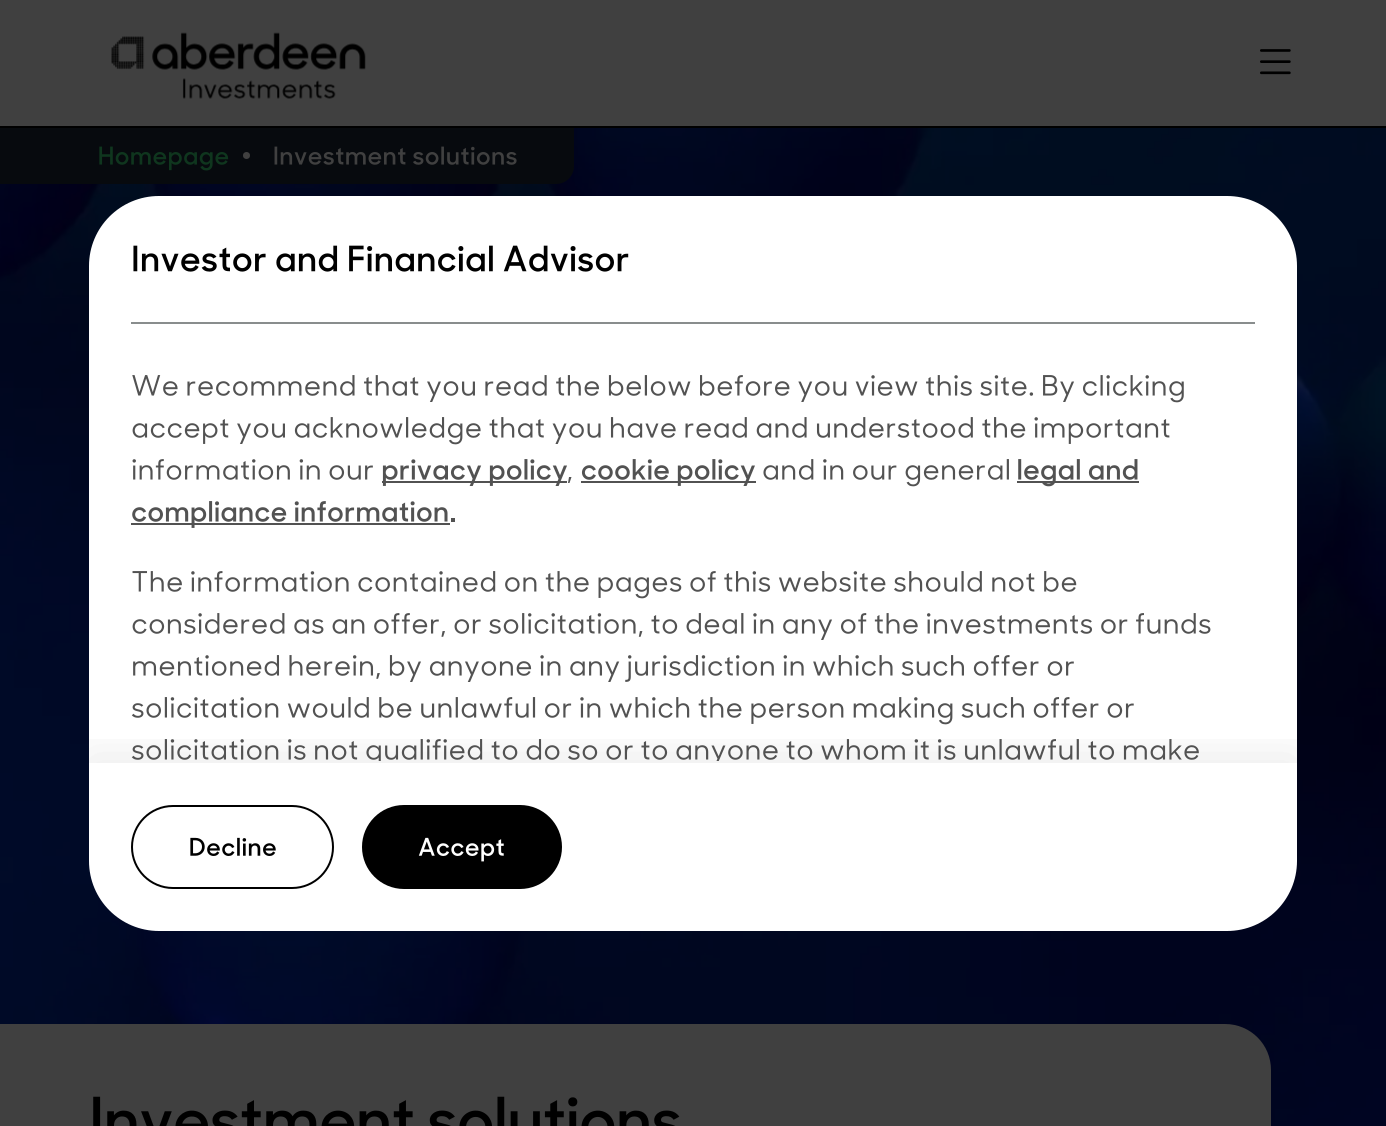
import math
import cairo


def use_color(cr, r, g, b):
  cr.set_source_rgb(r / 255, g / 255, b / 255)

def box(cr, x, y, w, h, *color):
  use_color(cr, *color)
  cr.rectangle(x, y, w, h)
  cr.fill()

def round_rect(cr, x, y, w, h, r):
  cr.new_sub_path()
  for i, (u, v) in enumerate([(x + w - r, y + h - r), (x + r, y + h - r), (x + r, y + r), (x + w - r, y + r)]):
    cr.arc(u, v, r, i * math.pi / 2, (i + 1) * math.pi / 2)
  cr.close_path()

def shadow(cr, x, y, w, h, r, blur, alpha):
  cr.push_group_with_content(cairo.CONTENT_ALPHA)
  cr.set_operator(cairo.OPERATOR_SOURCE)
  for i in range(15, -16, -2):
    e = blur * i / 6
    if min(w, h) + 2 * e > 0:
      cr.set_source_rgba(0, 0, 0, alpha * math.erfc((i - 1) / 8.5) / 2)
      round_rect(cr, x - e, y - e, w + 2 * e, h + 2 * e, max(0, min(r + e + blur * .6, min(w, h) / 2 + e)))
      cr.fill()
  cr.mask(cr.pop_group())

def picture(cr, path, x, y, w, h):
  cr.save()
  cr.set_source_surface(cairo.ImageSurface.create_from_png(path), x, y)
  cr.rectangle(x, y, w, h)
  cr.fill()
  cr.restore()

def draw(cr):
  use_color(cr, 255, 255, 255)
  cr.paint()
  box(cr, 0, 0, 1386, 126, 64, 64, 64)
  box(cr, 0, 126, 1386, 2, 0, 0, 0)
  picture(cr, "img_01.png", 111, 32, 255, 67)
  picture(cr, "img_02.png", 1260, 49, 31, 26)
  picture(cr, "img_05.png", 0, 128, 1386, 998)
  use_color(cr, 7, 10, 14)
  cr.new_path()
  cr.move_to(89, 128)
  cr.line_to(574, 128)
  cr.line_to(574, 166)
  cr.curve_to(574, 176, 566, 184, 556, 184)
  cr.line_to(89, 184)
  cr.close_path()
  cr.fill()
  box(cr, 0, 128, 89, 56, 7, 10, 14)
  picture(cr, "img_03.png", 99, 146, 130, 25)
  use_color(cr, 64, 64, 64)
  cr.arc(246.5, 155.5, 3.5, 0, 2 * math.pi)
  cr.fill()
  picture(cr, "img_04.png", 274, 146, 243, 19)
  cr.new_path()
  cr.move_to(63, 1024)
  cr.line_to(1225, 1024)
  cr.curve_to(1250.5, 1024, 1271, 1044.5, 1271, 1070)
  cr.line_to(1271, 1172)
  cr.line_to(63, 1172)
  cr.close_path()
  cr.fill()
  box(cr, 0, 1024, 63, 102, 64, 64, 64)
  picture(cr, "img_06.png", 93, 1096, 587, 30)
  use_color(cr, 255, 255, 255)
  round_rect(cr, 89, 196, 1208, 735, 70)
  cr.fill()
  picture(cr, "img_07.png", 133, 245, 496, 27)
  box(cr, 131, 322, 1124, 2, 137, 141, 141)
  picture(cr, "img_08.png", 132, 375, 1052, 28)
  picture(cr, "img_09.png", 132, 417, 1038, 28)
  picture(cr, "img_10.png", 132, 459, 241, 21)
  box(cr, 382, 481, 185, 2, 82, 82, 82)
  picture(cr, "img_11.png", 382, 459, 185, 27)
  cr.new_path()
  cr.move_to(569, 477)
  cr.line_to(571.5, 477)
  cr.line_to(569.5, 483)
  cr.line_to(568, 483)
  cr.close_path()
  cr.fill()
  box(cr, 581, 481, 175, 2, 82, 82, 82)
  picture(cr, "img_12.png", 581, 459, 174, 27)
  picture(cr, "img_13.png", 763, 459, 246, 28)
  box(cr, 1017, 481, 122, 2, 82, 82, 82)
  picture(cr, "img_14.png", 1018, 459, 120, 28)
  box(cr, 131, 523, 319, 2, 82, 82, 82)
  picture(cr, "img_15.png", 132, 501, 316, 27)
  box(cr, 451, 518, 4, 4, 82, 82, 82)
  picture(cr, "img_16.png", 132, 571, 945, 28)
  picture(cr, "img_17.png", 132, 613, 1079, 27)
  cr.save()
  cr.rectangle(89, 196, 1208, 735)
  cr.clip()
  cr.rectangle(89, 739, 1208, 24)
  cr.clip()
  use_color(cr, 0, 0, 0)
  shadow(cr, 89, 756, 1208, 168, 0, 24.5, 0.08)
  cr.restore()
  picture(cr, "img_18.png", 133, 655, 941, 27)
  picture(cr, "img_19.png", 131, 697, 1003, 28)
  picture(cr, "img_20.png", 131, 739, 1068, 22)
  round_rect(cr, 132, 806, 201, 82, 41)
  use_color(cr, 0, 0, 0)
  cr.stroke()
  picture(cr, "img_21.png", 190, 837, 86, 19)
  round_rect(cr, 362, 805, 200, 84, 42)
  cr.fill()
  picture(cr, "img_22.png", 418, 837, 86, 25)


surface = cairo.ImageSurface(cairo.FORMAT_RGB24, 1386, 1126)
cr = cairo.Context(surface)
options = cairo.FontOptions()
options.set_hint_metrics(cairo.HINT_METRICS_OFF)
options.set_hint_style(cairo.HINT_STYLE_NONE)
cr.set_font_options(options)
cr.set_miter_limit(4)
draw(cr)
surface.write_to_png("out.png")
